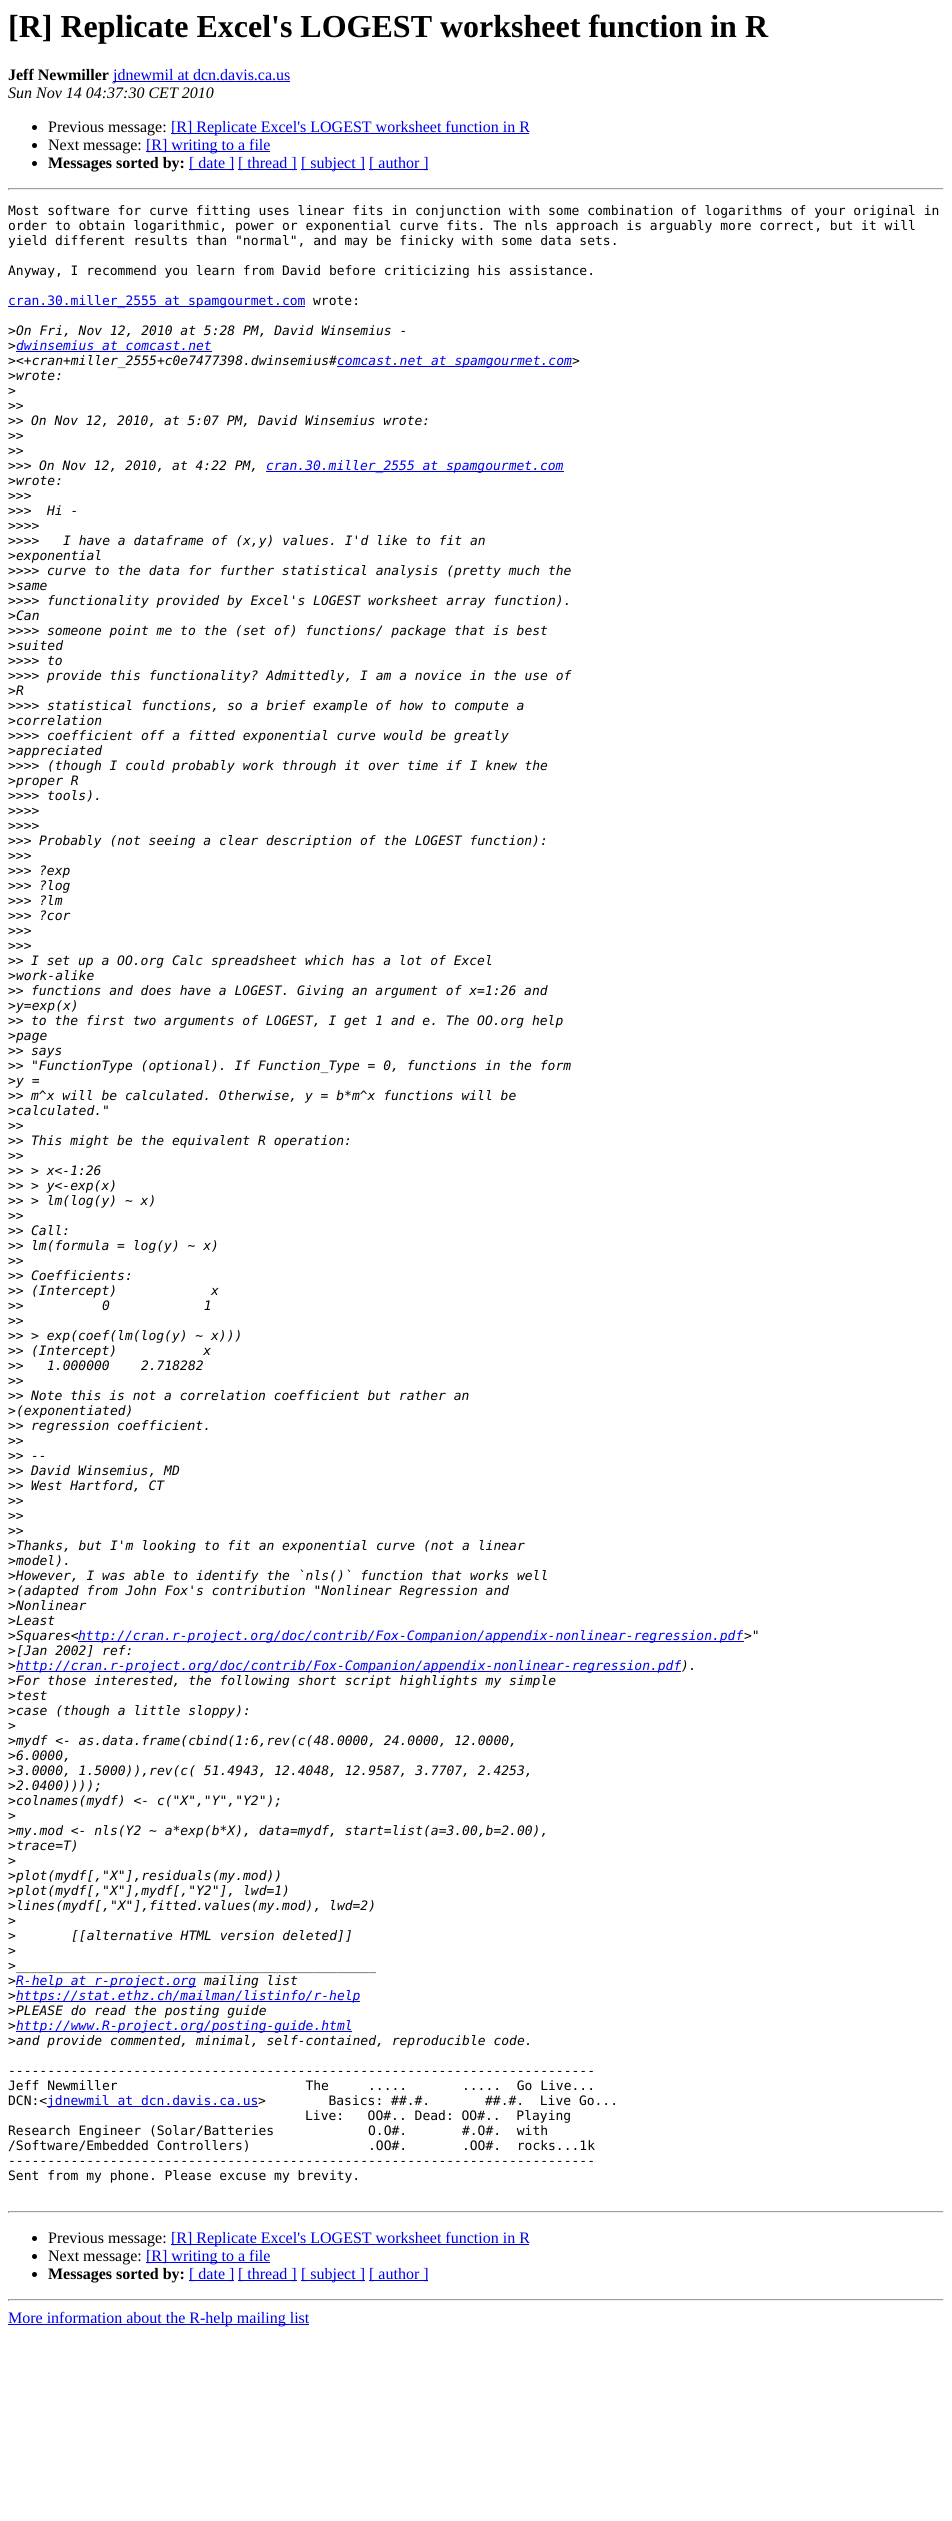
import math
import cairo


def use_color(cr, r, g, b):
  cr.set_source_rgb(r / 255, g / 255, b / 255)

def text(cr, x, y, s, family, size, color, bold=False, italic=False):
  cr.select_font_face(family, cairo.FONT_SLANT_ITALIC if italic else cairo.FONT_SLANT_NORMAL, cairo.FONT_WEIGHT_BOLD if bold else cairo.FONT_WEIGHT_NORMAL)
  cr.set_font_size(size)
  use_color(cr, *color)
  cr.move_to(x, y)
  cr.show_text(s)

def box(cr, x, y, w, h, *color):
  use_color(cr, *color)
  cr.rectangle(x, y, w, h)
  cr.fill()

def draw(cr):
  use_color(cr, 255, 255, 255)
  cr.paint()
  box(cr, 113, 81, 177, 1, 0, 0, 238)
  use_color(cr, 0, 0, 0)
  cr.arc(34.5, 127.5, 2.5, 0, 2 * math.pi)
  cr.fill()
  box(cr, 171, 133, 358, 1, 0, 0, 238)
  use_color(cr, 0, 0, 0)
  cr.arc(34.5, 145.5, 2.5, 0, 2 * math.pi)
  cr.fill()
  box(cr, 146, 151, 124, 1, 0, 0, 238)
  use_color(cr, 0, 0, 0)
  cr.arc(34.5, 163.5, 2.5, 0, 2 * math.pi)
  cr.fill()
  box(cr, 189, 169, 45, 1, 0, 0, 238)
  box(cr, 238, 169, 59, 1, 0, 0, 238)
  box(cr, 301, 169, 64, 1, 0, 0, 238)
  box(cr, 369, 169, 59, 1, 0, 0, 238)
  box(cr, 8, 188, 936, 1, 159, 159, 159)
  box(cr, 943, 188, 1, 2, 238, 238, 238)
  box(cr, 8, 189, 936, 1, 238, 238, 238)
  box(cr, 8, 188, 1, 2, 159, 159, 159)
  box(cr, 8, 306, 297, 1, 0, 0, 238)
  box(cr, 16, 351, 196, 1, 0, 0, 238)
  box(cr, 337, 366, 235, 1, 0, 0, 238)
  box(cr, 266, 471, 298, 1, 0, 0, 238)
  box(cr, 78, 1641, 666, 1, 0, 0, 238)
  box(cr, 16, 1671, 665, 1, 0, 0, 238)
  box(cr, 16, 1986, 180, 1, 0, 0, 238)
  box(cr, 16, 2001, 344, 1, 0, 0, 238)
  box(cr, 16, 2031, 336, 1, 0, 0, 238)
  box(cr, 47, 2106, 211, 1, 0, 0, 238)
  box(cr, 8, 2211, 936, 1, 159, 159, 159)
  box(cr, 943, 2211, 1, 2, 238, 238, 238)
  box(cr, 8, 2212, 936, 1, 238, 238, 238)
  box(cr, 8, 2211, 1, 2, 159, 159, 159)
  use_color(cr, 0, 0, 0)
  cr.arc(34.5, 2238.5, 2.5, 0, 2 * math.pi)
  cr.fill()
  box(cr, 171, 2244, 358, 1, 0, 0, 238)
  use_color(cr, 0, 0, 0)
  cr.arc(34.5, 2256.5, 2.5, 0, 2 * math.pi)
  cr.fill()
  box(cr, 146, 2262, 124, 1, 0, 0, 238)
  use_color(cr, 0, 0, 0)
  cr.arc(34.5, 2274.5, 2.5, 0, 2 * math.pi)
  cr.fill()
  box(cr, 189, 2280, 45, 1, 0, 0, 238)
  box(cr, 238, 2280, 59, 1, 0, 0, 238)
  box(cr, 301, 2280, 64, 1, 0, 0, 238)
  box(cr, 369, 2280, 59, 1, 0, 0, 238)
  box(cr, 8, 2299, 936, 1, 159, 159, 159)
  box(cr, 943, 2299, 1, 2, 238, 238, 238)
  box(cr, 8, 2300, 936, 1, 238, 238, 238)
  box(cr, 8, 2299, 1, 2, 159, 159, 159)
  box(cr, 8, 2324, 301, 1, 0, 0, 238)
  text(cr, 8, 37, "[R] Replicate Excel's LOGEST worksheet function in R", "Liberation Serif", 32, (0, 0, 0), bold=True)
  text(cr, 8, 80, "Jeff Newmiller", "Liberation Serif", 16, (0, 0, 0), bold=True)
  text(cr, 113, 80, "jdnewmil at dcn.davis.ca.us", "Liberation Serif", 16, (0, 0, 238))
  text(cr, 8, 98, "Sun Nov 14 04:37:30 CET 2010", "Liberation Serif", 16, (0, 0, 0), italic=True)
  text(cr, 48, 132, "Previous message:", "Liberation Serif", 16, (0, 0, 0))
  text(cr, 171, 132, "[R] Replicate Excel's LOGEST worksheet function in R", "Liberation Serif", 16, (0, 0, 238))
  text(cr, 48, 150, "Next message:", "Liberation Serif", 16, (0, 0, 0))
  text(cr, 146, 150, "[R] writing to a file", "Liberation Serif", 16, (0, 0, 238))
  text(cr, 48, 168, "Messages sorted by:", "Liberation Serif", 16, (0, 0, 0), bold=True)
  text(cr, 189, 168, "[ date ]", "Liberation Serif", 16, (0, 0, 238))
  text(cr, 238, 168, "[ thread ]", "Liberation Serif", 16, (0, 0, 238))
  text(cr, 301, 168, "[ subject ]", "Liberation Serif", 16, (0, 0, 238))
  text(cr, 369, 168, "[ author ]", "Liberation Serif", 16, (0, 0, 238))
  text(cr, 8, 215, "Most software for curve fitting uses linear fits in conjunction with some combination of logarithms of your original in", "DejaVu Sans Mono", 13, (0, 0, 0))
  text(cr, 8, 230, "order to obtain logarithmic, power or exponential curve fits. The nls approach is arguably more correct, but it will", "DejaVu Sans Mono", 13, (0, 0, 0))
  text(cr, 8, 245, "yield different results than \"normal\", and may be finicky with some data sets.", "DejaVu Sans Mono", 13, (0, 0, 0))
  text(cr, 8, 275, "Anyway, I recommend you learn from David before criticizing his assistance.", "DejaVu Sans Mono", 13, (0, 0, 0))
  text(cr, 8, 305, "cran.30.miller_2555 at spamgourmet.com", "DejaVu Sans Mono", 13, (0, 0, 238))
  text(cr, 313, 305, "wrote:", "DejaVu Sans Mono", 13, (0, 0, 0))
  text(cr, 8, 335, ">", "DejaVu Sans Mono", 13, (0, 0, 0))
  text(cr, 16, 335, "On Fri, Nov 12, 2010 at 5:28 PM, David Winsemius -", "DejaVu Sans Mono", 13, (0, 0, 0), italic=True)
  text(cr, 8, 350, ">", "DejaVu Sans Mono", 13, (0, 0, 0))
  text(cr, 16, 350, "dwinsemius at comcast.net", "DejaVu Sans Mono", 13, (0, 0, 238), italic=True)
  text(cr, 8, 365, ">", "DejaVu Sans Mono", 13, (0, 0, 0))
  text(cr, 16, 365, "<+cran+miller_2555+c0e7477398.dwinsemius#", "DejaVu Sans Mono", 13, (0, 0, 0), italic=True)
  text(cr, 337, 365, "comcast.net at spamgourmet.com", "DejaVu Sans Mono", 13, (0, 0, 238), italic=True)
  text(cr, 572, 365, ">", "DejaVu Sans Mono", 13, (0, 0, 0), italic=True)
  text(cr, 8, 380, ">", "DejaVu Sans Mono", 13, (0, 0, 0))
  text(cr, 16, 380, "wrote:", "DejaVu Sans Mono", 13, (0, 0, 0), italic=True)
  text(cr, 8, 395, ">", "DejaVu Sans Mono", 13, (0, 0, 0))
  text(cr, 8, 410, ">>", "DejaVu Sans Mono", 13, (0, 0, 0))
  text(cr, 8, 425, ">>", "DejaVu Sans Mono", 13, (0, 0, 0))
  text(cr, 31, 425, "On Nov 12, 2010, at 5:07 PM, David Winsemius wrote:", "DejaVu Sans Mono", 13, (0, 0, 0), italic=True)
  text(cr, 8, 440, ">>", "DejaVu Sans Mono", 13, (0, 0, 0))
  text(cr, 8, 455, ">>", "DejaVu Sans Mono", 13, (0, 0, 0))
  text(cr, 8, 470, ">>>", "DejaVu Sans Mono", 13, (0, 0, 0))
  text(cr, 39, 470, "On Nov 12, 2010, at 4:22 PM,", "DejaVu Sans Mono", 13, (0, 0, 0), italic=True)
  text(cr, 266, 470, "cran.30.miller_2555 at spamgourmet.com", "DejaVu Sans Mono", 13, (0, 0, 238), italic=True)
  text(cr, 8, 485, ">", "DejaVu Sans Mono", 13, (0, 0, 0))
  text(cr, 16, 485, "wrote:", "DejaVu Sans Mono", 13, (0, 0, 0), italic=True)
  text(cr, 8, 500, ">>>", "DejaVu Sans Mono", 13, (0, 0, 0))
  text(cr, 8, 515, ">>>", "DejaVu Sans Mono", 13, (0, 0, 0))
  text(cr, 47, 515, "Hi -", "DejaVu Sans Mono", 13, (0, 0, 0), italic=True)
  text(cr, 8, 530, ">>>>", "DejaVu Sans Mono", 13, (0, 0, 0))
  text(cr, 8, 545, ">>>>", "DejaVu Sans Mono", 13, (0, 0, 0))
  text(cr, 63, 545, "I have a dataframe of (x,y) values. I'd like to fit an", "DejaVu Sans Mono", 13, (0, 0, 0), italic=True)
  text(cr, 8, 560, ">", "DejaVu Sans Mono", 13, (0, 0, 0))
  text(cr, 16, 560, "exponential", "DejaVu Sans Mono", 13, (0, 0, 0), italic=True)
  text(cr, 8, 575, ">>>>", "DejaVu Sans Mono", 13, (0, 0, 0))
  text(cr, 47, 575, "curve to the data for further statistical analysis (pretty much the", "DejaVu Sans Mono", 13, (0, 0, 0), italic=True)
  text(cr, 8, 590, ">", "DejaVu Sans Mono", 13, (0, 0, 0))
  text(cr, 16, 590, "same", "DejaVu Sans Mono", 13, (0, 0, 0), italic=True)
  text(cr, 8, 605, ">>>>", "DejaVu Sans Mono", 13, (0, 0, 0))
  text(cr, 47, 605, "functionality provided by Excel's LOGEST worksheet array function).", "DejaVu Sans Mono", 13, (0, 0, 0), italic=True)
  text(cr, 8, 620, ">", "DejaVu Sans Mono", 13, (0, 0, 0))
  text(cr, 16, 620, "Can", "DejaVu Sans Mono", 13, (0, 0, 0), italic=True)
  text(cr, 8, 635, ">>>>", "DejaVu Sans Mono", 13, (0, 0, 0))
  text(cr, 47, 635, "someone point me to the (set of) functions/ package that is best", "DejaVu Sans Mono", 13, (0, 0, 0), italic=True)
  text(cr, 8, 650, ">", "DejaVu Sans Mono", 13, (0, 0, 0))
  text(cr, 16, 650, "suited", "DejaVu Sans Mono", 13, (0, 0, 0), italic=True)
  text(cr, 8, 665, ">>>>", "DejaVu Sans Mono", 13, (0, 0, 0))
  text(cr, 47, 665, "to", "DejaVu Sans Mono", 13, (0, 0, 0), italic=True)
  text(cr, 8, 680, ">>>>", "DejaVu Sans Mono", 13, (0, 0, 0))
  text(cr, 47, 680, "provide this functionality? Admittedly, I am a novice in the use of", "DejaVu Sans Mono", 13, (0, 0, 0), italic=True)
  text(cr, 8, 695, ">", "DejaVu Sans Mono", 13, (0, 0, 0))
  text(cr, 16, 695, "R", "DejaVu Sans Mono", 13, (0, 0, 0), italic=True)
  text(cr, 8, 710, ">>>>", "DejaVu Sans Mono", 13, (0, 0, 0))
  text(cr, 47, 710, "statistical functions, so a brief example of how to compute a", "DejaVu Sans Mono", 13, (0, 0, 0), italic=True)
  text(cr, 8, 725, ">", "DejaVu Sans Mono", 13, (0, 0, 0))
  text(cr, 16, 725, "correlation", "DejaVu Sans Mono", 13, (0, 0, 0), italic=True)
  text(cr, 8, 740, ">>>>", "DejaVu Sans Mono", 13, (0, 0, 0))
  text(cr, 47, 740, "coefficient off a fitted exponential curve would be greatly", "DejaVu Sans Mono", 13, (0, 0, 0), italic=True)
  text(cr, 8, 755, ">", "DejaVu Sans Mono", 13, (0, 0, 0))
  text(cr, 16, 755, "appreciated", "DejaVu Sans Mono", 13, (0, 0, 0), italic=True)
  text(cr, 8, 770, ">>>>", "DejaVu Sans Mono", 13, (0, 0, 0))
  text(cr, 47, 770, "(though I could probably work through it over time if I knew the", "DejaVu Sans Mono", 13, (0, 0, 0), italic=True)
  text(cr, 8, 785, ">", "DejaVu Sans Mono", 13, (0, 0, 0))
  text(cr, 16, 785, "proper R", "DejaVu Sans Mono", 13, (0, 0, 0), italic=True)
  text(cr, 8, 800, ">>>>", "DejaVu Sans Mono", 13, (0, 0, 0))
  text(cr, 47, 800, "tools).", "DejaVu Sans Mono", 13, (0, 0, 0), italic=True)
  text(cr, 8, 815, ">>>>", "DejaVu Sans Mono", 13, (0, 0, 0))
  text(cr, 8, 830, ">>>>", "DejaVu Sans Mono", 13, (0, 0, 0))
  text(cr, 8, 845, ">>>", "DejaVu Sans Mono", 13, (0, 0, 0))
  text(cr, 39, 845, "Probably (not seeing a clear description of the LOGEST function):", "DejaVu Sans Mono", 13, (0, 0, 0), italic=True)
  text(cr, 8, 860, ">>>", "DejaVu Sans Mono", 13, (0, 0, 0))
  text(cr, 8, 875, ">>>", "DejaVu Sans Mono", 13, (0, 0, 0))
  text(cr, 39, 875, "?exp", "DejaVu Sans Mono", 13, (0, 0, 0), italic=True)
  text(cr, 8, 890, ">>>", "DejaVu Sans Mono", 13, (0, 0, 0))
  text(cr, 39, 890, "?log", "DejaVu Sans Mono", 13, (0, 0, 0), italic=True)
  text(cr, 8, 905, ">>>", "DejaVu Sans Mono", 13, (0, 0, 0))
  text(cr, 39, 905, "?lm", "DejaVu Sans Mono", 13, (0, 0, 0), italic=True)
  text(cr, 8, 920, ">>>", "DejaVu Sans Mono", 13, (0, 0, 0))
  text(cr, 39, 920, "?cor", "DejaVu Sans Mono", 13, (0, 0, 0), italic=True)
  text(cr, 8, 935, ">>>", "DejaVu Sans Mono", 13, (0, 0, 0))
  text(cr, 8, 950, ">>>", "DejaVu Sans Mono", 13, (0, 0, 0))
  text(cr, 8, 965, ">>", "DejaVu Sans Mono", 13, (0, 0, 0))
  text(cr, 31, 965, "I set up a OO.org Calc spreadsheet which has a lot of Excel", "DejaVu Sans Mono", 13, (0, 0, 0), italic=True)
  text(cr, 8, 980, ">", "DejaVu Sans Mono", 13, (0, 0, 0))
  text(cr, 16, 980, "work-alike", "DejaVu Sans Mono", 13, (0, 0, 0), italic=True)
  text(cr, 8, 995, ">>", "DejaVu Sans Mono", 13, (0, 0, 0))
  text(cr, 31, 995, "functions and does have a LOGEST. Giving an argument of x=1:26 and", "DejaVu Sans Mono", 13, (0, 0, 0), italic=True)
  text(cr, 8, 1010, ">", "DejaVu Sans Mono", 13, (0, 0, 0))
  text(cr, 16, 1010, "y=exp(x)", "DejaVu Sans Mono", 13, (0, 0, 0), italic=True)
  text(cr, 8, 1025, ">>", "DejaVu Sans Mono", 13, (0, 0, 0))
  text(cr, 31, 1025, "to the first two arguments of LOGEST, I get 1 and e. The OO.org help", "DejaVu Sans Mono", 13, (0, 0, 0), italic=True)
  text(cr, 8, 1040, ">", "DejaVu Sans Mono", 13, (0, 0, 0))
  text(cr, 16, 1040, "page", "DejaVu Sans Mono", 13, (0, 0, 0), italic=True)
  text(cr, 8, 1055, ">>", "DejaVu Sans Mono", 13, (0, 0, 0))
  text(cr, 31, 1055, "says", "DejaVu Sans Mono", 13, (0, 0, 0), italic=True)
  text(cr, 8, 1070, ">>", "DejaVu Sans Mono", 13, (0, 0, 0))
  text(cr, 31, 1070, "\"FunctionType (optional). If Function_Type = 0, functions in the form", "DejaVu Sans Mono", 13, (0, 0, 0), italic=True)
  text(cr, 8, 1085, ">", "DejaVu Sans Mono", 13, (0, 0, 0))
  text(cr, 16, 1085, "y =", "DejaVu Sans Mono", 13, (0, 0, 0), italic=True)
  text(cr, 8, 1100, ">>", "DejaVu Sans Mono", 13, (0, 0, 0))
  text(cr, 31, 1100, "m^x will be calculated. Otherwise, y = b*m^x functions will be", "DejaVu Sans Mono", 13, (0, 0, 0), italic=True)
  text(cr, 8, 1115, ">", "DejaVu Sans Mono", 13, (0, 0, 0))
  text(cr, 16, 1115, "calculated.\"", "DejaVu Sans Mono", 13, (0, 0, 0), italic=True)
  text(cr, 8, 1130, ">>", "DejaVu Sans Mono", 13, (0, 0, 0))
  text(cr, 8, 1145, ">>", "DejaVu Sans Mono", 13, (0, 0, 0))
  text(cr, 31, 1145, "This might be the equivalent R operation:", "DejaVu Sans Mono", 13, (0, 0, 0), italic=True)
  text(cr, 8, 1160, ">>", "DejaVu Sans Mono", 13, (0, 0, 0))
  text(cr, 8, 1175, ">>", "DejaVu Sans Mono", 13, (0, 0, 0))
  text(cr, 31, 1175, "> x<-1:26", "DejaVu Sans Mono", 13, (0, 0, 0), italic=True)
  text(cr, 8, 1190, ">>", "DejaVu Sans Mono", 13, (0, 0, 0))
  text(cr, 31, 1190, "> y<-exp(x)", "DejaVu Sans Mono", 13, (0, 0, 0), italic=True)
  text(cr, 8, 1205, ">>", "DejaVu Sans Mono", 13, (0, 0, 0))
  text(cr, 31, 1205, "> lm(log(y) ~ x)", "DejaVu Sans Mono", 13, (0, 0, 0), italic=True)
  text(cr, 8, 1220, ">>", "DejaVu Sans Mono", 13, (0, 0, 0))
  text(cr, 8, 1235, ">>", "DejaVu Sans Mono", 13, (0, 0, 0))
  text(cr, 31, 1235, "Call:", "DejaVu Sans Mono", 13, (0, 0, 0), italic=True)
  text(cr, 8, 1250, ">>", "DejaVu Sans Mono", 13, (0, 0, 0))
  text(cr, 31, 1250, "lm(formula = log(y) ~ x)", "DejaVu Sans Mono", 13, (0, 0, 0), italic=True)
  text(cr, 8, 1265, ">>", "DejaVu Sans Mono", 13, (0, 0, 0))
  text(cr, 8, 1280, ">>", "DejaVu Sans Mono", 13, (0, 0, 0))
  text(cr, 31, 1280, "Coefficients:", "DejaVu Sans Mono", 13, (0, 0, 0), italic=True)
  text(cr, 8, 1295, ">>", "DejaVu Sans Mono", 13, (0, 0, 0))
  text(cr, 31, 1295, "(Intercept)            x", "DejaVu Sans Mono", 13, (0, 0, 0), italic=True)
  text(cr, 8, 1310, ">>", "DejaVu Sans Mono", 13, (0, 0, 0))
  text(cr, 102, 1310, "0            1", "DejaVu Sans Mono", 13, (0, 0, 0), italic=True)
  text(cr, 8, 1325, ">>", "DejaVu Sans Mono", 13, (0, 0, 0))
  text(cr, 8, 1340, ">>", "DejaVu Sans Mono", 13, (0, 0, 0))
  text(cr, 31, 1340, "> exp(coef(lm(log(y) ~ x)))", "DejaVu Sans Mono", 13, (0, 0, 0), italic=True)
  text(cr, 8, 1355, ">>", "DejaVu Sans Mono", 13, (0, 0, 0))
  text(cr, 31, 1355, "(Intercept)           x", "DejaVu Sans Mono", 13, (0, 0, 0), italic=True)
  text(cr, 8, 1370, ">>", "DejaVu Sans Mono", 13, (0, 0, 0))
  text(cr, 47, 1370, "1.000000    2.718282", "DejaVu Sans Mono", 13, (0, 0, 0), italic=True)
  text(cr, 8, 1385, ">>", "DejaVu Sans Mono", 13, (0, 0, 0))
  text(cr, 8, 1400, ">>", "DejaVu Sans Mono", 13, (0, 0, 0))
  text(cr, 31, 1400, "Note this is not a correlation coefficient but rather an", "DejaVu Sans Mono", 13, (0, 0, 0), italic=True)
  text(cr, 8, 1415, ">", "DejaVu Sans Mono", 13, (0, 0, 0))
  text(cr, 16, 1415, "(exponentiated)", "DejaVu Sans Mono", 13, (0, 0, 0), italic=True)
  text(cr, 8, 1430, ">>", "DejaVu Sans Mono", 13, (0, 0, 0))
  text(cr, 31, 1430, "regression coefficient.", "DejaVu Sans Mono", 13, (0, 0, 0), italic=True)
  text(cr, 8, 1445, ">>", "DejaVu Sans Mono", 13, (0, 0, 0))
  text(cr, 8, 1460, ">>", "DejaVu Sans Mono", 13, (0, 0, 0))
  text(cr, 31, 1460, "--", "DejaVu Sans Mono", 13, (0, 0, 0), italic=True)
  text(cr, 8, 1475, ">>", "DejaVu Sans Mono", 13, (0, 0, 0))
  text(cr, 31, 1475, "David Winsemius, MD", "DejaVu Sans Mono", 13, (0, 0, 0), italic=True)
  text(cr, 8, 1490, ">>", "DejaVu Sans Mono", 13, (0, 0, 0))
  text(cr, 31, 1490, "West Hartford, CT", "DejaVu Sans Mono", 13, (0, 0, 0), italic=True)
  text(cr, 8, 1505, ">>", "DejaVu Sans Mono", 13, (0, 0, 0))
  text(cr, 8, 1520, ">>", "DejaVu Sans Mono", 13, (0, 0, 0))
  text(cr, 8, 1535, ">>", "DejaVu Sans Mono", 13, (0, 0, 0))
  text(cr, 8, 1550, ">", "DejaVu Sans Mono", 13, (0, 0, 0))
  text(cr, 16, 1550, "Thanks, but I'm looking to fit an exponential curve (not a linear", "DejaVu Sans Mono", 13, (0, 0, 0), italic=True)
  text(cr, 8, 1565, ">", "DejaVu Sans Mono", 13, (0, 0, 0))
  text(cr, 16, 1565, "model).", "DejaVu Sans Mono", 13, (0, 0, 0), italic=True)
  text(cr, 8, 1580, ">", "DejaVu Sans Mono", 13, (0, 0, 0))
  text(cr, 16, 1580, "However, I was able to identify the `nls()` function that works well", "DejaVu Sans Mono", 13, (0, 0, 0), italic=True)
  text(cr, 8, 1595, ">", "DejaVu Sans Mono", 13, (0, 0, 0))
  text(cr, 16, 1595, "(adapted from John Fox's contribution \"Nonlinear Regression and", "DejaVu Sans Mono", 13, (0, 0, 0), italic=True)
  text(cr, 8, 1610, ">", "DejaVu Sans Mono", 13, (0, 0, 0))
  text(cr, 16, 1610, "Nonlinear", "DejaVu Sans Mono", 13, (0, 0, 0), italic=True)
  text(cr, 8, 1625, ">", "DejaVu Sans Mono", 13, (0, 0, 0))
  text(cr, 16, 1625, "Least", "DejaVu Sans Mono", 13, (0, 0, 0), italic=True)
  text(cr, 8, 1640, ">", "DejaVu Sans Mono", 13, (0, 0, 0))
  text(cr, 16, 1640, "Squares<", "DejaVu Sans Mono", 13, (0, 0, 0), italic=True)
  text(cr, 78, 1640, "http://cran.r-project.org/doc/contrib/Fox-Companion/appendix-nonlinear-regression.pdf", "DejaVu Sans Mono", 13, (0, 0, 238), italic=True)
  text(cr, 744, 1640, ">\"", "DejaVu Sans Mono", 13, (0, 0, 0), italic=True)
  text(cr, 8, 1655, ">", "DejaVu Sans Mono", 13, (0, 0, 0))
  text(cr, 16, 1655, "[Jan 2002] ref:", "DejaVu Sans Mono", 13, (0, 0, 0), italic=True)
  text(cr, 8, 1670, ">", "DejaVu Sans Mono", 13, (0, 0, 0))
  text(cr, 16, 1670, "http://cran.r-project.org/doc/contrib/Fox-Companion/appendix-nonlinear-regression.pdf", "DejaVu Sans Mono", 13, (0, 0, 238), italic=True)
  text(cr, 681, 1670, ").", "DejaVu Sans Mono", 13, (0, 0, 0), italic=True)
  text(cr, 8, 1685, ">", "DejaVu Sans Mono", 13, (0, 0, 0))
  text(cr, 16, 1685, "For those interested, the following short script highlights my simple", "DejaVu Sans Mono", 13, (0, 0, 0), italic=True)
  text(cr, 8, 1700, ">", "DejaVu Sans Mono", 13, (0, 0, 0))
  text(cr, 16, 1700, "test", "DejaVu Sans Mono", 13, (0, 0, 0), italic=True)
  text(cr, 8, 1715, ">", "DejaVu Sans Mono", 13, (0, 0, 0))
  text(cr, 16, 1715, "case (though a little sloppy):", "DejaVu Sans Mono", 13, (0, 0, 0), italic=True)
  text(cr, 8, 1730, ">", "DejaVu Sans Mono", 13, (0, 0, 0))
  text(cr, 8, 1745, ">", "DejaVu Sans Mono", 13, (0, 0, 0))
  text(cr, 16, 1745, "mydf <- as.data.frame(cbind(1:6,rev(c(48.0000, 24.0000, 12.0000,", "DejaVu Sans Mono", 13, (0, 0, 0), italic=True)
  text(cr, 8, 1760, ">", "DejaVu Sans Mono", 13, (0, 0, 0))
  text(cr, 16, 1760, "6.0000,", "DejaVu Sans Mono", 13, (0, 0, 0), italic=True)
  text(cr, 8, 1775, ">", "DejaVu Sans Mono", 13, (0, 0, 0))
  text(cr, 16, 1775, "3.0000, 1.5000)),rev(c( 51.4943, 12.4048, 12.9587, 3.7707, 2.4253,", "DejaVu Sans Mono", 13, (0, 0, 0), italic=True)
  text(cr, 8, 1790, ">", "DejaVu Sans Mono", 13, (0, 0, 0))
  text(cr, 16, 1790, "2.0400))));", "DejaVu Sans Mono", 13, (0, 0, 0), italic=True)
  text(cr, 8, 1805, ">", "DejaVu Sans Mono", 13, (0, 0, 0))
  text(cr, 16, 1805, "colnames(mydf) <- c(\"X\",\"Y\",\"Y2\");", "DejaVu Sans Mono", 13, (0, 0, 0), italic=True)
  text(cr, 8, 1820, ">", "DejaVu Sans Mono", 13, (0, 0, 0))
  text(cr, 8, 1835, ">", "DejaVu Sans Mono", 13, (0, 0, 0))
  text(cr, 16, 1835, "my.mod <- nls(Y2 ~ a*exp(b*X), data=mydf, start=list(a=3.00,b=2.00),", "DejaVu Sans Mono", 13, (0, 0, 0), italic=True)
  text(cr, 8, 1850, ">", "DejaVu Sans Mono", 13, (0, 0, 0))
  text(cr, 16, 1850, "trace=T)", "DejaVu Sans Mono", 13, (0, 0, 0), italic=True)
  text(cr, 8, 1865, ">", "DejaVu Sans Mono", 13, (0, 0, 0))
  text(cr, 8, 1880, ">", "DejaVu Sans Mono", 13, (0, 0, 0))
  text(cr, 16, 1880, "plot(mydf[,\"X\"],residuals(my.mod))", "DejaVu Sans Mono", 13, (0, 0, 0), italic=True)
  text(cr, 8, 1895, ">", "DejaVu Sans Mono", 13, (0, 0, 0))
  text(cr, 16, 1895, "plot(mydf[,\"X\"],mydf[,\"Y2\"], lwd=1)", "DejaVu Sans Mono", 13, (0, 0, 0), italic=True)
  text(cr, 8, 1910, ">", "DejaVu Sans Mono", 13, (0, 0, 0))
  text(cr, 16, 1910, "lines(mydf[,\"X\"],fitted.values(my.mod), lwd=2)", "DejaVu Sans Mono", 13, (0, 0, 0), italic=True)
  text(cr, 8, 1925, ">", "DejaVu Sans Mono", 13, (0, 0, 0))
  text(cr, 8, 1940, ">", "DejaVu Sans Mono", 13, (0, 0, 0))
  text(cr, 71, 1940, "[[alternative HTML version deleted]]", "DejaVu Sans Mono", 13, (0, 0, 0), italic=True)
  text(cr, 8, 1955, ">", "DejaVu Sans Mono", 13, (0, 0, 0))
  text(cr, 8, 1970, ">", "DejaVu Sans Mono", 13, (0, 0, 0))
  text(cr, 16, 1970, "______________________________________________", "DejaVu Sans Mono", 13, (0, 0, 0), italic=True)
  text(cr, 8, 1985, ">", "DejaVu Sans Mono", 13, (0, 0, 0))
  text(cr, 16, 1985, "R-help at r-project.org", "DejaVu Sans Mono", 13, (0, 0, 238), italic=True)
  text(cr, 204, 1985, "mailing list", "DejaVu Sans Mono", 13, (0, 0, 0), italic=True)
  text(cr, 8, 2000, ">", "DejaVu Sans Mono", 13, (0, 0, 0))
  text(cr, 16, 2000, "https://stat.ethz.ch/mailman/listinfo/r-help", "DejaVu Sans Mono", 13, (0, 0, 238), italic=True)
  text(cr, 8, 2015, ">", "DejaVu Sans Mono", 13, (0, 0, 0))
  text(cr, 16, 2015, "PLEASE do read the posting guide", "DejaVu Sans Mono", 13, (0, 0, 0), italic=True)
  text(cr, 8, 2030, ">", "DejaVu Sans Mono", 13, (0, 0, 0))
  text(cr, 16, 2030, "http://www.R-project.org/posting-guide.html", "DejaVu Sans Mono", 13, (0, 0, 238), italic=True)
  text(cr, 8, 2045, ">", "DejaVu Sans Mono", 13, (0, 0, 0))
  text(cr, 16, 2045, "and provide commented, minimal, self-contained, reproducible code.", "DejaVu Sans Mono", 13, (0, 0, 0), italic=True)
  text(cr, 8, 2075, "---------------------------------------------------------------------------", "DejaVu Sans Mono", 13, (0, 0, 0))
  text(cr, 8, 2090, "Jeff Newmiller                        The     .....       .....  Go Live...", "DejaVu Sans Mono", 13, (0, 0, 0))
  text(cr, 8, 2105, "DCN:<", "DejaVu Sans Mono", 13, (0, 0, 0))
  text(cr, 47, 2105, "jdnewmil at dcn.davis.ca.us", "DejaVu Sans Mono", 13, (0, 0, 238))
  text(cr, 258, 2105, ">        Basics: ##.#.       ##.#.  Live Go...", "DejaVu Sans Mono", 13, (0, 0, 0))
  text(cr, 305, 2120, "Live:   OO#.. Dead: OO#..  Playing", "DejaVu Sans Mono", 13, (0, 0, 0))
  text(cr, 8, 2135, "Research Engineer (Solar/Batteries            O.O#.       #.O#.  with", "DejaVu Sans Mono", 13, (0, 0, 0))
  text(cr, 8, 2150, "/Software/Embedded Controllers)               .OO#.       .OO#.  rocks...1k", "DejaVu Sans Mono", 13, (0, 0, 0))
  text(cr, 8, 2165, "---------------------------------------------------------------------------", "DejaVu Sans Mono", 13, (0, 0, 0))
  text(cr, 8, 2180, "Sent from my phone. Please excuse my brevity.", "DejaVu Sans Mono", 13, (0, 0, 0))
  text(cr, 48, 2243, "Previous message:", "Liberation Serif", 16, (0, 0, 0))
  text(cr, 171, 2243, "[R] Replicate Excel's LOGEST worksheet function in R", "Liberation Serif", 16, (0, 0, 238))
  text(cr, 48, 2261, "Next message:", "Liberation Serif", 16, (0, 0, 0))
  text(cr, 146, 2261, "[R] writing to a file", "Liberation Serif", 16, (0, 0, 238))
  text(cr, 48, 2279, "Messages sorted by:", "Liberation Serif", 16, (0, 0, 0), bold=True)
  text(cr, 189, 2279, "[ date ]", "Liberation Serif", 16, (0, 0, 238))
  text(cr, 238, 2279, "[ thread ]", "Liberation Serif", 16, (0, 0, 238))
  text(cr, 301, 2279, "[ subject ]", "Liberation Serif", 16, (0, 0, 238))
  text(cr, 369, 2279, "[ author ]", "Liberation Serif", 16, (0, 0, 238))
  text(cr, 8, 2323, "More information about the R-help mailing list", "Liberation Serif", 16, (0, 0, 238))


surface = cairo.ImageSurface(cairo.FORMAT_RGB24, 952, 2521)
cr = cairo.Context(surface)
options = cairo.FontOptions()
options.set_hint_metrics(cairo.HINT_METRICS_OFF)
options.set_hint_style(cairo.HINT_STYLE_NONE)
cr.set_font_options(options)
cr.set_miter_limit(4)
draw(cr)
surface.write_to_png("out.png")
